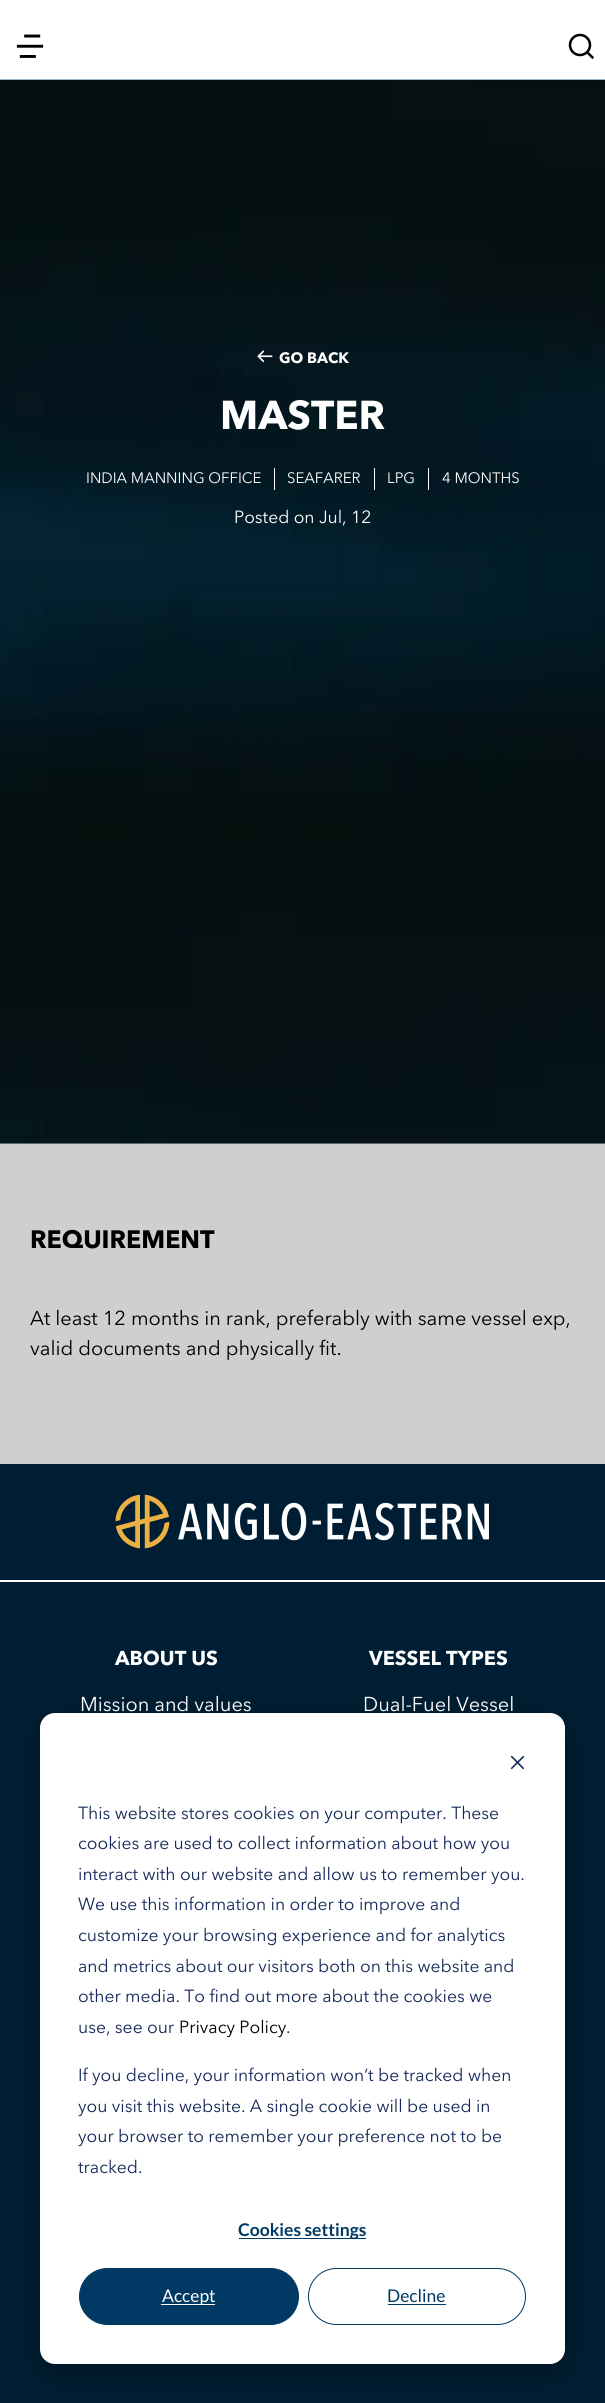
import math
import cairo


def use_color(cr, r, g, b):
  cr.set_source_rgb(r / 255, g / 255, b / 255)

def text(cr, x, y, s, family, size, color, bold=False, italic=False):
  cr.select_font_face(family, cairo.FONT_SLANT_ITALIC if italic else cairo.FONT_SLANT_NORMAL, cairo.FONT_WEIGHT_BOLD if bold else cairo.FONT_WEIGHT_NORMAL)
  cr.set_font_size(size)
  use_color(cr, *color)
  cr.move_to(x, y)
  cr.show_text(s)

def box(cr, x, y, w, h, *color):
  use_color(cr, *color)
  cr.rectangle(x, y, w, h)
  cr.fill()

def round_rect(cr, x, y, w, h, r):
  cr.new_sub_path()
  for i, (u, v) in enumerate([(x + w - r, y + h - r), (x + r, y + h - r), (x + r, y + r), (x + w - r, y + r)]):
    cr.arc(u, v, r, i * math.pi / 2, (i + 1) * math.pi / 2)
  cr.close_path()

def shadow(cr, x, y, w, h, r, blur, alpha):
  cr.push_group_with_content(cairo.CONTENT_ALPHA)
  cr.set_operator(cairo.OPERATOR_SOURCE)
  for i in range(15, -16, -2):
    e = blur * i / 6
    if min(w, h) + 2 * e > 0:
      cr.set_source_rgba(0, 0, 0, alpha * math.erfc((i - 1) / 8.5) / 2)
      round_rect(cr, x - e, y - e, w + 2 * e, h + 2 * e, max(0, min(r + e + blur * .6, min(w, h) / 2 + e)))
      cr.fill()
  cr.mask(cr.pop_group())

def picture(cr, path, x, y, w, h):
  cr.save()
  cr.set_source_surface(cairo.ImageSurface.create_from_png(path), x, y)
  cr.rectangle(x, y, w, h)
  cr.fill()
  cr.restore()

def draw(cr):
  use_color(cr, 208, 207, 207)
  cr.paint()
  box(cr, 0, 0, 605, 79, 255, 255, 255)
  box(cr, 0, 79, 605, 1, 153, 182, 204)
  picture(cr, "img_01.png", 16, 34, 28, 24)
  picture(cr, "img_02.png", 568, 33, 27, 26)
  picture(cr, "img_03.png", 0, 80, 605, 1064)
  picture(cr, "img_04.png", 257, 350, 16, 13)
  box(cr, 274, 468, 1, 22, 255, 255, 255)
  box(cr, 374, 468, 1, 22, 255, 255, 255)
  box(cr, 428, 468, 1, 22, 255, 255, 255)
  box(cr, 0, 1464, 605, 939, 0, 30, 51)
  box(cr, 0, 1580, 605, 2, 255, 255, 255)
  picture(cr, "img_05.png", 115, 1494, 374, 55)
  use_color(cr, 0, 0, 0)
  shadow(cr, 40, 1723, 525, 651, 15, 17.5, 0.28)
  use_color(cr, 255, 255, 255)
  round_rect(cr, 40, 1713, 525, 651, 15)
  cr.fill()
  picture(cr, "img_06.png", 510, 1755, 15, 15)
  box(cr, 239, 2238, 127, 1, 0, 57, 99)
  round_rect(cr, 79.5, 2268.5, 219, 56, 28)
  cr.fill_preserve()
  cr.set_line_width(1)
  cr.stroke()
  box(cr, 161, 2304, 54, 1, 255, 255, 255)
  round_rect(cr, 308.5, 2268.5, 217, 56, 28)
  use_color(cr, 0, 57, 99)
  cr.stroke()
  box(cr, 388, 2304, 58, 1, 0, 57, 99)
  text(cr, 279, 363, "GO BACK", "Avenir Next", 15, (255, 255, 255), bold=True)
  text(cr, 220, 429, "MASTER", "Avenir Next", 40, (255, 255, 255), bold=True)
  text(cr, 86, 483, "INDIA MANNING OFFICE", "Avenir Next", 15, (255, 255, 255))
  text(cr, 287, 483, "SEAFARER", "Avenir Next", 15, (255, 255, 255))
  text(cr, 387, 483, "LPG", "Avenir Next", 15, (255, 255, 255))
  text(cr, 442, 483, "4 MONTHS", "Avenir Next", 15, (255, 255, 255))
  text(cr, 234, 523, "Posted on Jul, 12", "Avenir Next", 17.5, (255, 255, 255))
  text(cr, 30, 1248, "REQUIREMENT", "Avenir Next", 25, (0, 0, 0), bold=True)
  text(cr, 30, 1325, "At least 12 months in rank, preferably with same vessel exp,", "Avenir Next", 20, (0, 0, 0))
  text(cr, 30, 1355, "valid documents and physically fit.", "Avenir Next", 20, (0, 0, 0))
  text(cr, 115, 1665, "ABOUT US", "Avenir Next", 20, (255, 255, 255), bold=True)
  text(cr, 80, 1711, "Mission and values", "Avenir Next", 20, (255, 255, 255))
  text(cr, 369, 1665, "VESSEL TYPES", "Avenir Next", 20, (255, 255, 255), bold=True)
  text(cr, 363, 1711, "Dual-Fuel Vessel", "Avenir Next", 20, (255, 255, 255))
  text(cr, 78, 1819, "This website stores cookies on your computer. These", "Avenir Next", 17.5, (21, 41, 90))
  text(cr, 78, 1849, "cookies are used to collect information about how you", "Avenir Next", 17.5, (21, 41, 90))
  text(cr, 78, 1880, "interact with our website and allow us to remember you.", "Avenir Next", 17.5, (21, 41, 90))
  text(cr, 78, 1910, "We use this information in order to improve and", "Avenir Next", 17.5, (21, 41, 90))
  text(cr, 78, 1941, "customize your browsing experience and for analytics", "Avenir Next", 17.5, (21, 41, 90))
  text(cr, 78, 1972, "and metrics about our visitors both on this website and", "Avenir Next", 17.5, (21, 41, 90))
  text(cr, 78, 2002, "other media. To find out more about the cookies we", "Avenir Next", 17.5, (21, 41, 90))
  text(cr, 78, 2033, "use, see our", "Avenir Next", 17.5, (21, 41, 90))
  text(cr, 179, 2033, "Privacy Policy", "Avenir Next", 17.5, (0, 0, 0))
  text(cr, 286, 2033, ".", "Avenir Next", 17.5, (21, 41, 90))
  text(cr, 78, 2081, "If you decline, your information won’t be tracked when", "Avenir Next", 17.5, (21, 41, 90))
  text(cr, 78, 2112, "you visit this website. A single cookie will be used in", "Avenir Next", 17.5, (21, 41, 90))
  text(cr, 78, 2142, "your browser to remember your preference not to be", "Avenir Next", 17.5, (21, 41, 90))
  text(cr, 78, 2173, "tracked.", "Avenir Next", 17.5, (21, 41, 90))
  text(cr, 238, 2236, "Cookies settings", "Lato", 17.5, (0, 57, 99), bold=True)
  text(cr, 162, 2302, "Accept", "Lato", 17.5, (255, 255, 255))
  text(cr, 387, 2302, "Decline", "Lato", 17.5, (0, 57, 99))


surface = cairo.ImageSurface(cairo.FORMAT_RGB24, 605, 2403)
cr = cairo.Context(surface)
options = cairo.FontOptions()
options.set_hint_metrics(cairo.HINT_METRICS_OFF)
options.set_hint_style(cairo.HINT_STYLE_NONE)
cr.set_font_options(options)
cr.set_miter_limit(4)
draw(cr)
surface.write_to_png("out.png")
